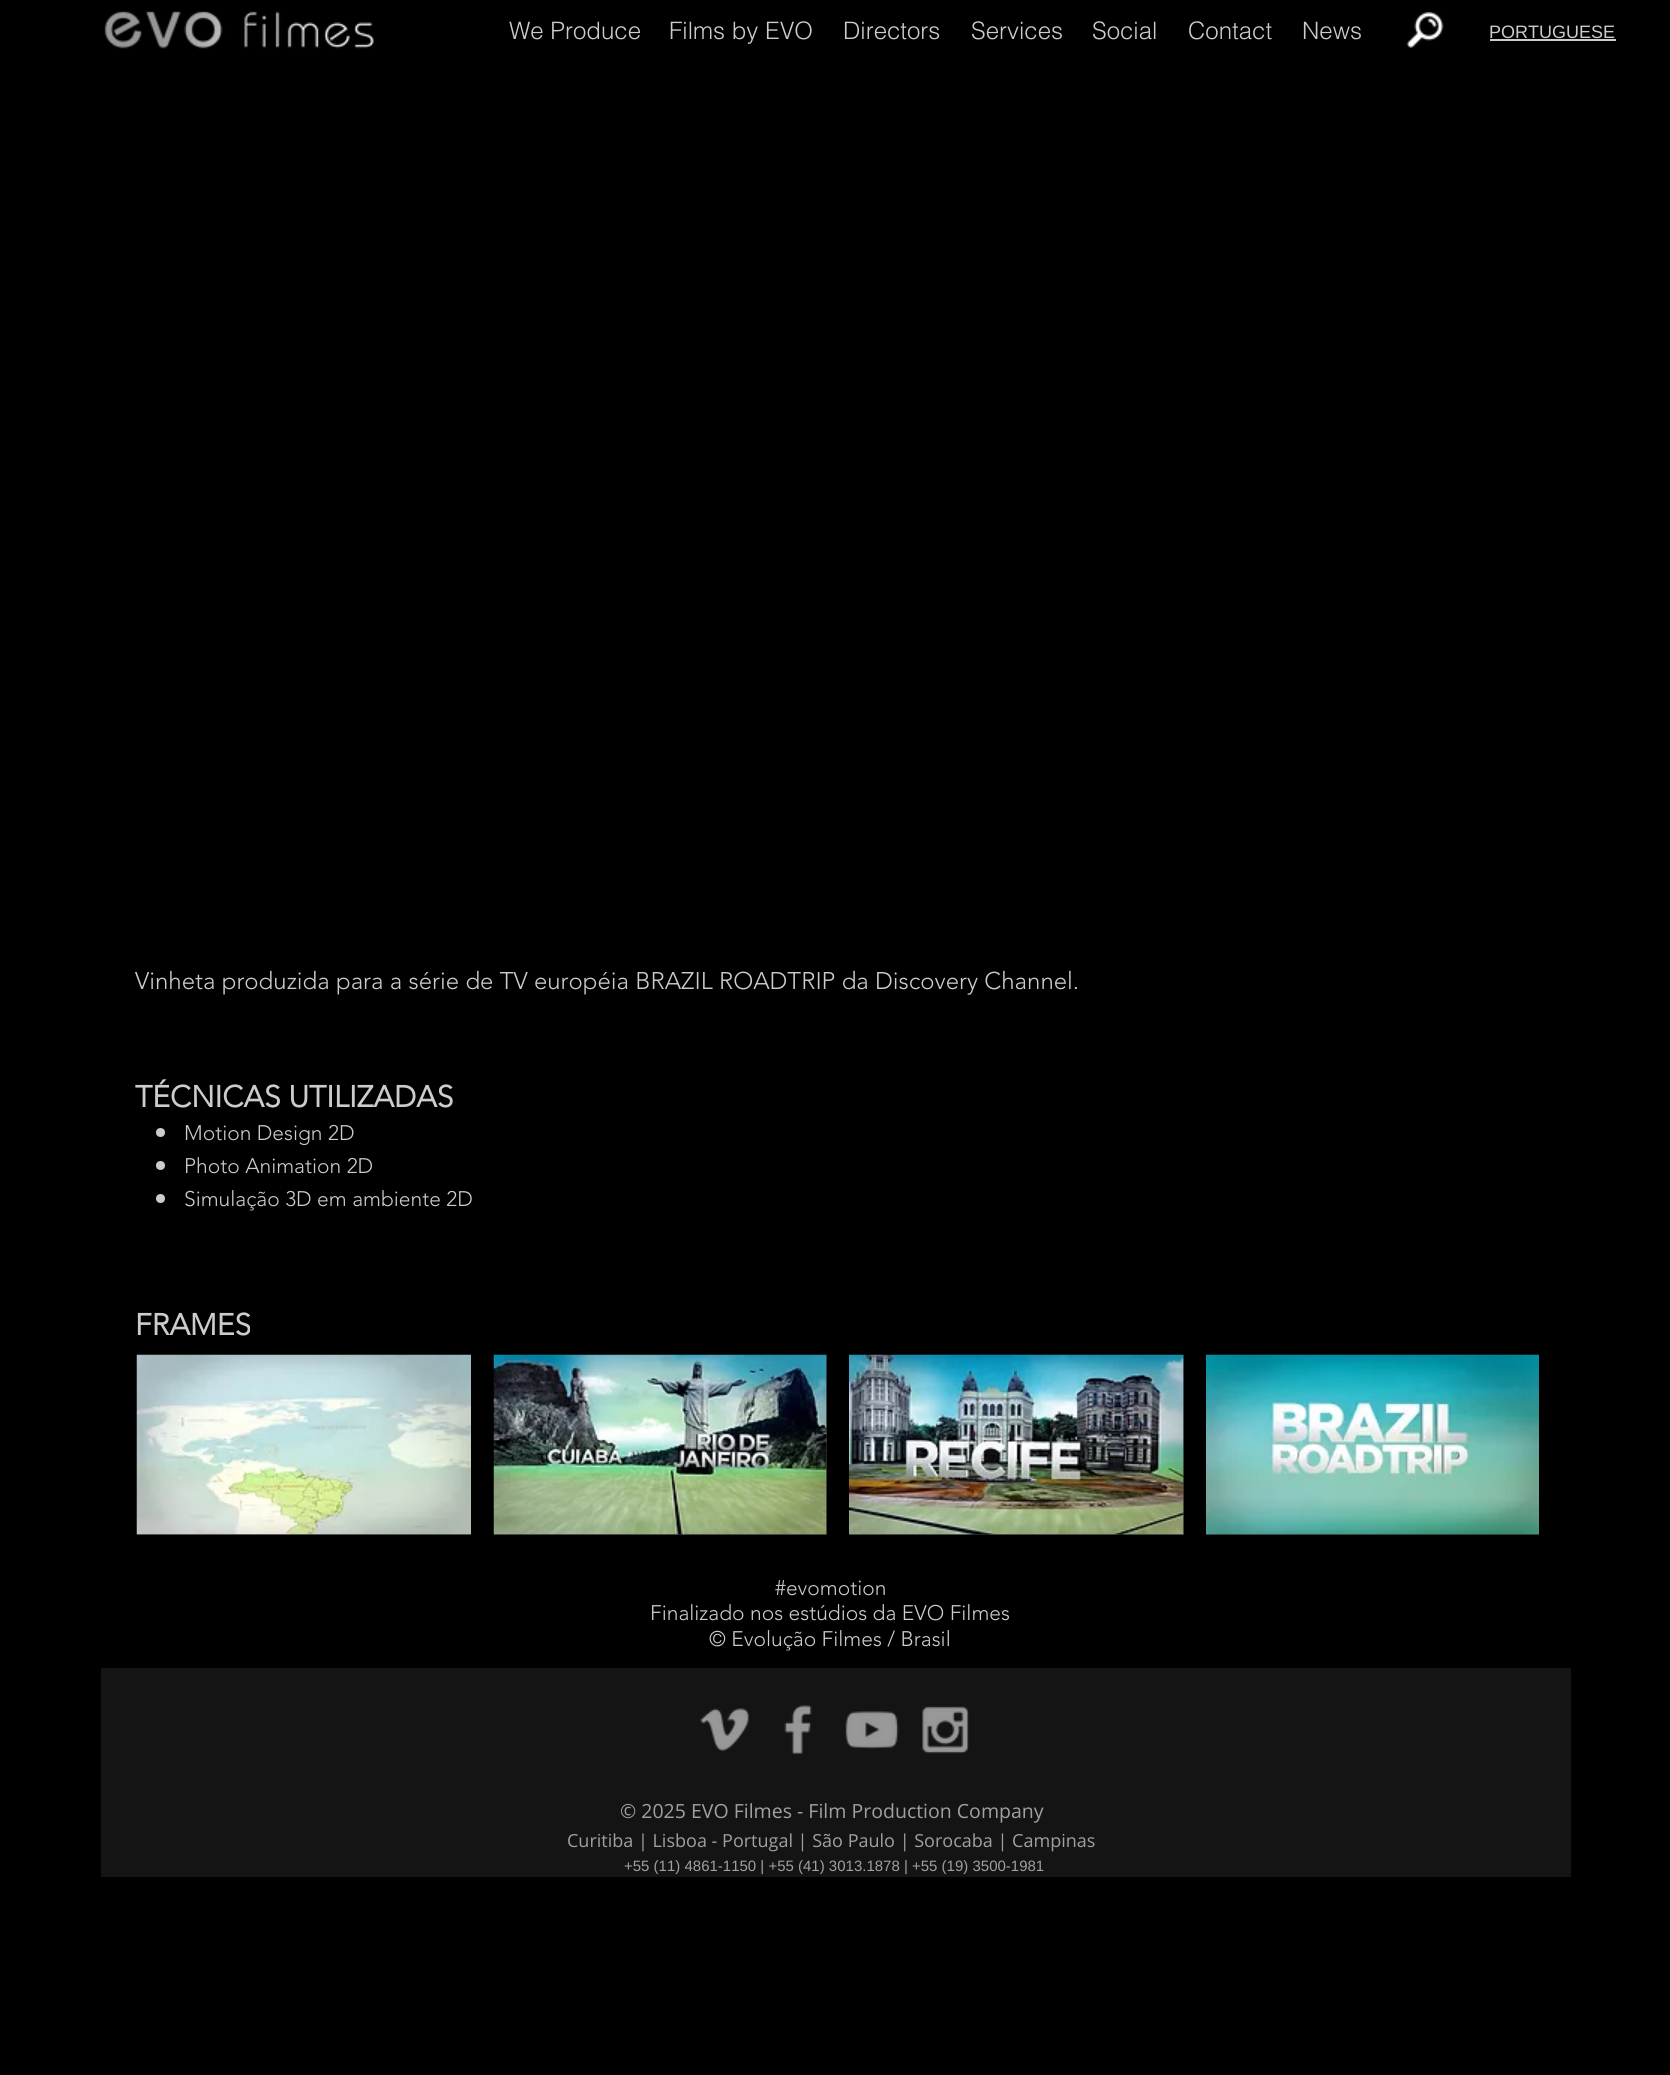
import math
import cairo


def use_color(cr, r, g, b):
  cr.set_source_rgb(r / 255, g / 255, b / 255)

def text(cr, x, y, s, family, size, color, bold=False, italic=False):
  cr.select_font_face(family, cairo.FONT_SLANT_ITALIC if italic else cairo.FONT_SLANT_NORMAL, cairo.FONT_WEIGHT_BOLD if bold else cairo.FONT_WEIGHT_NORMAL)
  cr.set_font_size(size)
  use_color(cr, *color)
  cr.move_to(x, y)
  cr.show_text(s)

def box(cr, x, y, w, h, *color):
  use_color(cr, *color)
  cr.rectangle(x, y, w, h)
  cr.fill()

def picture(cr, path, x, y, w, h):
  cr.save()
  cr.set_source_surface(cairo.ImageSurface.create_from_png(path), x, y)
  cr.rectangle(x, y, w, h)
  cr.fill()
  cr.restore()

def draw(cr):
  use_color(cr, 0, 0, 0)
  cr.paint()
  picture(cr, "img_01.png", 104, 11, 270, 38)
  picture(cr, "img_02.png", 1406, 12, 38, 36)
  box(cr, 1490, 39, 126, 2, 204, 204, 204)
  cr.arc(160.5, 1132.5, 4.5, 0, 2 * math.pi)
  cr.fill()
  cr.arc(160.5, 1165.5, 4.5, 0, 2 * math.pi)
  cr.fill()
  cr.arc(160.5, 1198.5, 4.5, 0, 2 * math.pi)
  cr.fill()
  box(cr, 137, 1534, 334, 1, 47, 46, 46)
  picture(cr, "img_03.png", 136, 1354, 335, 181)
  box(cr, 494, 1355, 333, 180, 47, 46, 46)
  picture(cr, "img_04.png", 493, 1354, 334, 181)
  box(cr, 849, 1355, 335, 180, 47, 46, 46)
  picture(cr, "img_05.png", 849, 1354, 335, 181)
  box(cr, 1206, 1534, 333, 1, 47, 46, 46)
  picture(cr, "img_06.png", 1206, 1354, 333, 181)
  box(cr, 101, 1668, 1470, 209, 20, 20, 20)
  picture(cr, "img_07.png", 700, 1708, 49, 43)
  picture(cr, "img_08.png", 784, 1705, 28, 49)
  picture(cr, "img_09.png", 845, 1711, 54, 38)
  picture(cr, "img_10.png", 922, 1706, 47, 48)
  text(cr, 509, 39, "We Produce", "helvetica Light", 24, (204, 204, 204))
  text(cr, 669, 39, "Films by EVO", "helvetica Light", 24, (204, 204, 204))
  text(cr, 843, 39, "Directors", "helvetica Light", 24, (204, 204, 204))
  text(cr, 971, 39, "Services", "helvetica Light", 24, (204, 204, 204))
  text(cr, 1092, 39, "Social", "helvetica Light", 24, (204, 204, 204))
  text(cr, 1188, 39, "Contact", "helvetica Light", 24, (204, 204, 204))
  text(cr, 1302, 39, "News", "helvetica Light", 24, (204, 204, 204))
  text(cr, 1489, 38, "PORTUGUESE", "Liberation Sans", 18, (204, 204, 204))
  text(cr, 135, 989, "Vinheta produzida para a série de TV européia BRAZIL ROADTRIP da Discovery Channel.", "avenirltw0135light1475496 Light", 24, (204, 204, 204))
  text(cr, 135, 1107, "TÉCNICAS UTILIZADAS", "avenirltw0135light1475496", 30, (204, 204, 204), bold=True)
  text(cr, 184, 1140, "Motion Design 2D", "avenirltw0135light1475496 Light", 21, (204, 204, 204))
  text(cr, 184, 1173, "Photo Animation 2D", "avenirltw0135light1475496 Light", 21, (204, 204, 204))
  text(cr, 184, 1206, "Simulação 3D em ambiente 2D", "avenirltw0135light1475496 Light", 21, (204, 204, 204))
  text(cr, 135, 1335, "FRAMES", "avenirltw0135light1475496", 30, (204, 204, 204), bold=True)
  text(cr, 775, 1595, "#evomotion", "avenirltw0135light1475496 Light", 21, (204, 204, 204))
  text(cr, 650, 1620, "Finalizado nos estúdios da EVO Filmes", "avenirltw0135light1475496 Light", 21, (204, 204, 204))
  text(cr, 709, 1646, "© Evolução Filmes / Brasil", "avenirltw0135light1475496 Light", 21, (204, 204, 204))
  text(cr, 620, 1818, "© 2025 EVO Filmes - Film Production Company", "Open Sans", 19.5, (160, 160, 159))
  text(cr, 567, 1847, "Curitiba | Lisboa - Portugal | São Paulo | Sorocaba | Campinas", "Open Sans", 18, (160, 160, 159))
  text(cr, 624, 1871, "+55 (11) 4861-1150 | +55 (41) 3013.1878 | +55 (19) 3500-1981", "Liberation Sans", 15, (160, 160, 159))


surface = cairo.ImageSurface(cairo.FORMAT_RGB24, 1670, 2075)
cr = cairo.Context(surface)
options = cairo.FontOptions()
options.set_hint_metrics(cairo.HINT_METRICS_OFF)
options.set_hint_style(cairo.HINT_STYLE_NONE)
cr.set_font_options(options)
cr.set_miter_limit(4)
draw(cr)
surface.write_to_png("out.png")
